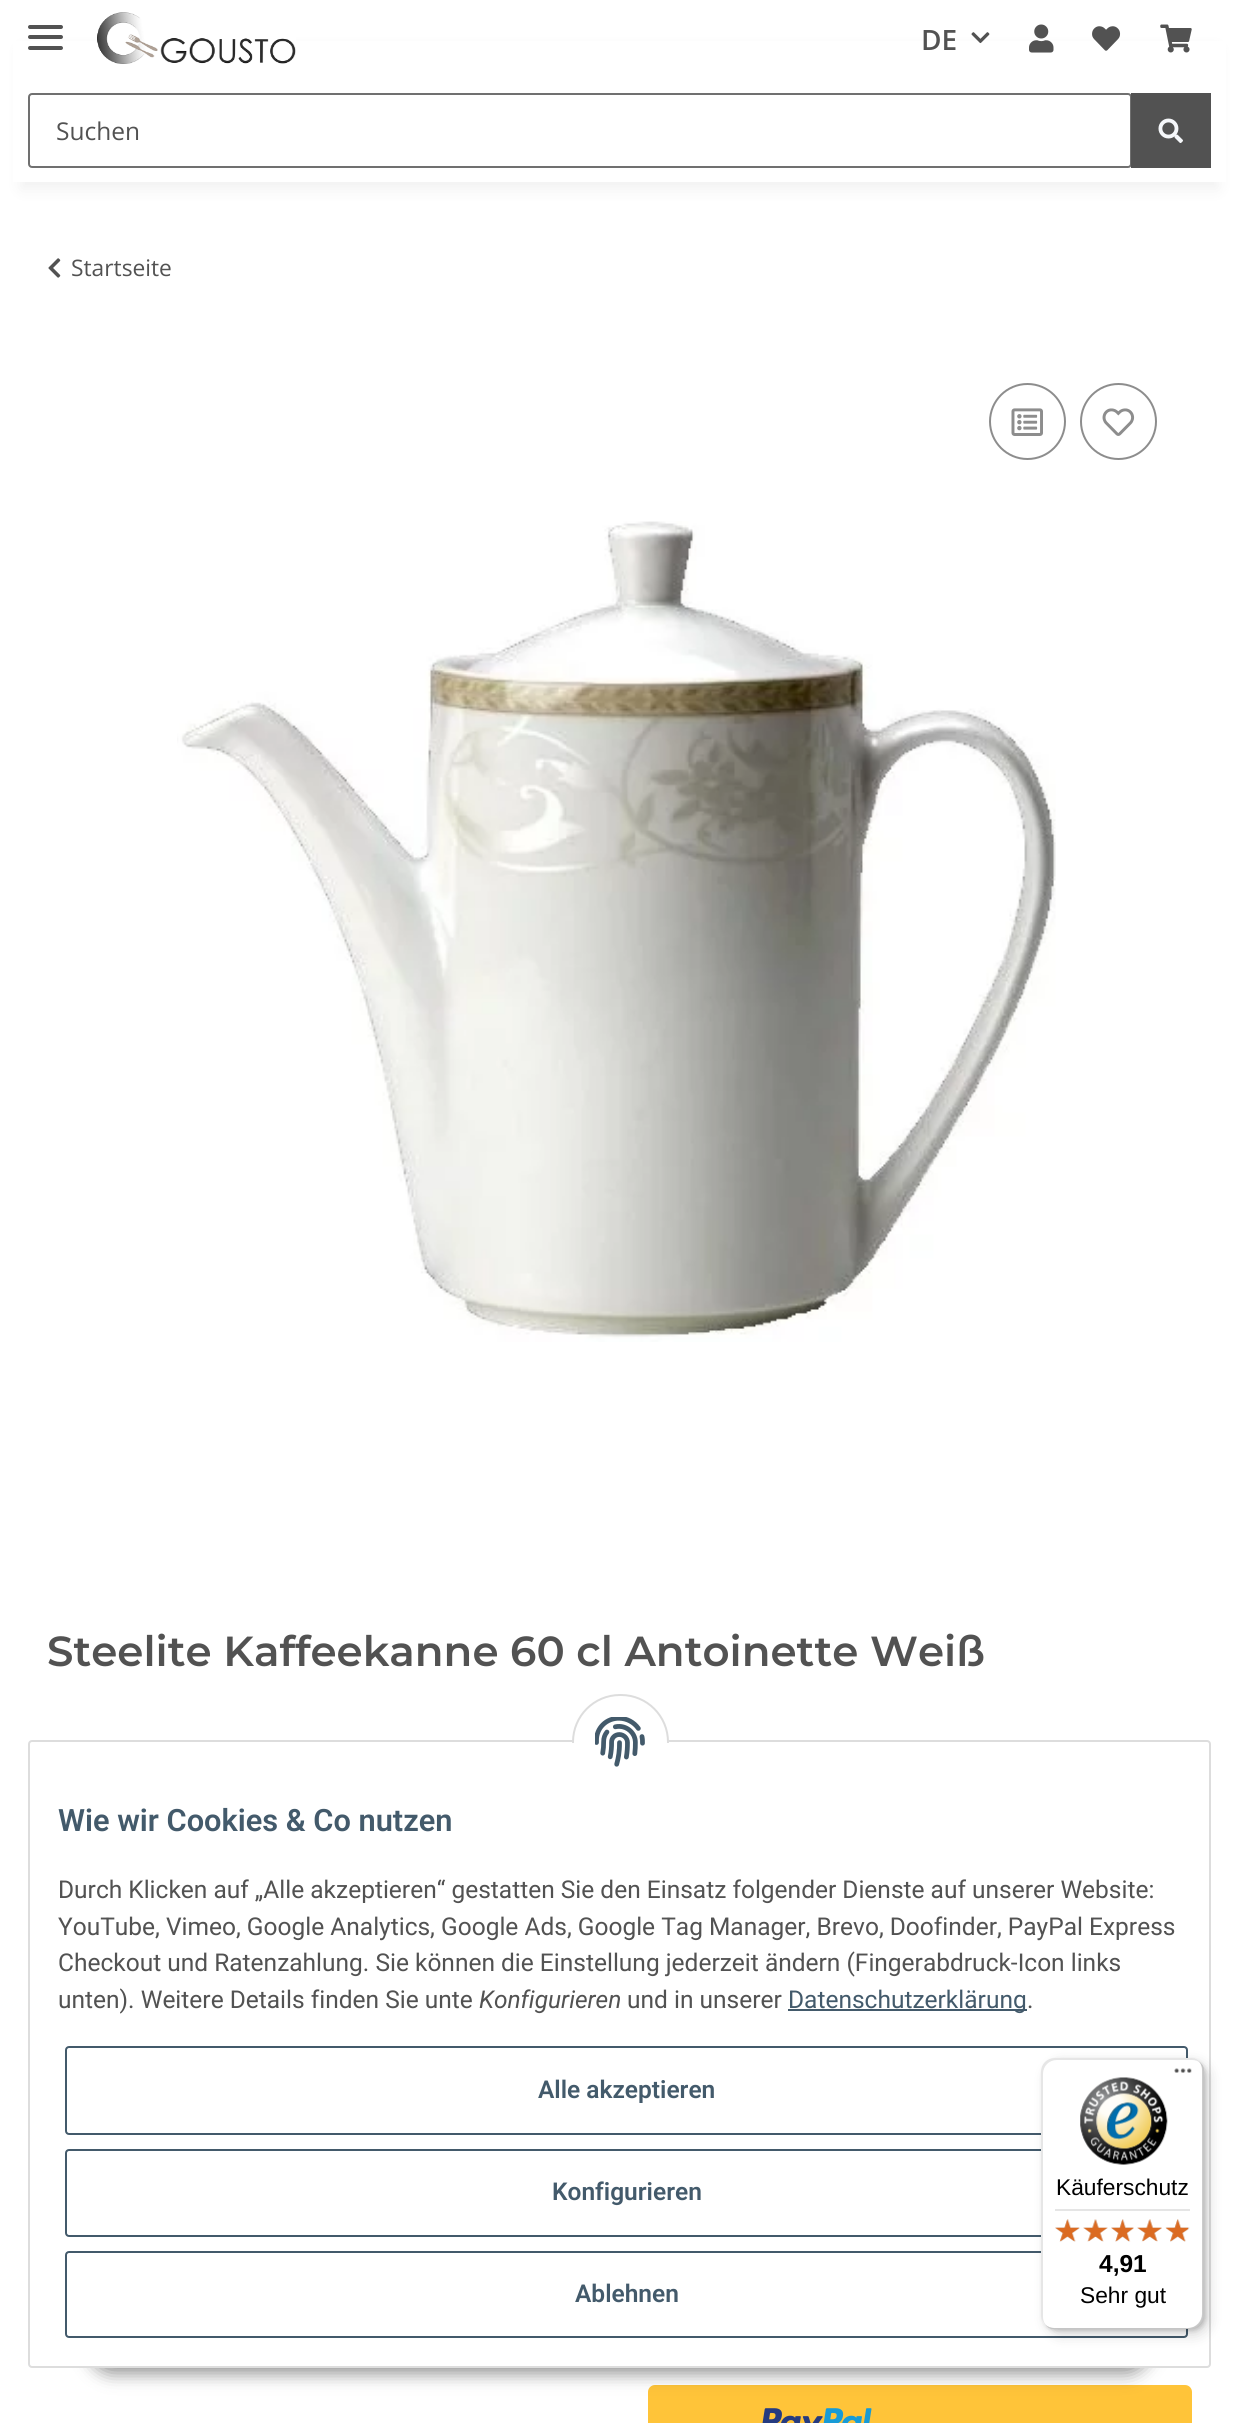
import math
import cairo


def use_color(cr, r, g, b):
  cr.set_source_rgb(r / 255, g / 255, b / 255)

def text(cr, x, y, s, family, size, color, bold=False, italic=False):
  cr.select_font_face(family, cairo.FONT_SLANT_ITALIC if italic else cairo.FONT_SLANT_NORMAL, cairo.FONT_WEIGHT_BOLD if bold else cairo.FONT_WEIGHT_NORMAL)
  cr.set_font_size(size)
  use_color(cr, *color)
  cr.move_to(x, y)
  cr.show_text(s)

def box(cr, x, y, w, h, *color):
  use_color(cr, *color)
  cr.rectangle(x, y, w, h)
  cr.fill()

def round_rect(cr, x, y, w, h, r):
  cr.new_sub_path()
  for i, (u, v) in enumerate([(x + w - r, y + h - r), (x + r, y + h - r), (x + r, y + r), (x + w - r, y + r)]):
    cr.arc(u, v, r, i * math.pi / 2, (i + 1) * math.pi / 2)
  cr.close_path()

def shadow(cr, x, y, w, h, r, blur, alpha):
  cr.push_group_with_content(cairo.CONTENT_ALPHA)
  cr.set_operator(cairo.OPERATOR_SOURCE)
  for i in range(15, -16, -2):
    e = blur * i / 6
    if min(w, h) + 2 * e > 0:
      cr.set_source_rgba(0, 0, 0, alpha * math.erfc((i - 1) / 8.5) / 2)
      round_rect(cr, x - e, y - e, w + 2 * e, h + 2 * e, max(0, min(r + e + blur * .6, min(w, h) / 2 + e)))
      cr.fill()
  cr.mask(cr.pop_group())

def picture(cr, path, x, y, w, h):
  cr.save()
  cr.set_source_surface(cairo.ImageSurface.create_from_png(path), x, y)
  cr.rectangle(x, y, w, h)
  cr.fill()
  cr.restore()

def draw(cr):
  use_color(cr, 255, 255, 255)
  cr.paint()
  use_color(cr, 0, 0, 0)
  shadow(cr, 21, 49, 1197, 140, 0, 8, 0.06)
  box(cr, 13, 41, 1213, 141, 255, 255, 255)
  use_color(cr, 82, 82, 82)
  round_rect(cr, 28, 35, 35, 4, 2)
  cr.fill()
  round_rect(cr, 28, 25, 35, 4, 2)
  cr.fill()
  round_rect(cr, 28, 46, 35, 4, 2)
  cr.fill()
  picture(cr, "img_01.png", 97, 12, 199, 52)
  picture(cr, "img_02.png", 971, 32, 19, 12)
  picture(cr, "img_03.png", 1029, 24, 25, 29)
  picture(cr, "img_04.png", 1092, 26, 29, 25)
  picture(cr, "img_05.png", 1160, 24, 32, 29)
  round_rect(cr, 29, 94, 1102, 73, 3)
  use_color(cr, 112, 112, 112)
  cr.stroke()
  box(cr, 1131, 93, 80, 75, 82, 82, 82)
  picture(cr, "img_06.png", 1158, 118, 25, 25)
  picture(cr, "img_07.png", 48, 258, 13, 20)
  cr.arc(1027.5, 421.5, 37.5, 0, 2 * math.pi)
  use_color(cr, 141, 141, 141)
  cr.stroke()
  picture(cr, "img_08.png", 1011, 408, 32, 28)
  cr.arc(1118.5, 421.5, 37.5, 0, 2 * math.pi)
  cr.stroke()
  picture(cr, "img_09.png", 1102, 408, 33, 28)
  picture(cr, "img_10.png", 177, 521, 879, 821)
  use_color(cr, 255, 196, 57)
  round_rect(cr, 648, 2385, 544, 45, 7)
  cr.fill()
  picture(cr, "img_11.png", 762, 2408, 110, 15)
  use_color(cr, 0, 0, 0)
  shadow(cr, 89, 2317, 1061, 56, 28, 9, 0.45)
  use_color(cr, 255, 255, 255)
  round_rect(cr, 29, 1741, 1181, 626, 3)
  cr.fill_preserve()
  use_color(cr, 221, 221, 221)
  cr.stroke()
  use_color(cr, 255, 255, 255)
  round_rect(cr, 573, 1695, 95, 94, 47)
  cr.fill_preserve()
  use_color(cr, 221, 221, 221)
  cr.stroke()
  box(cr, 572, 1743, 97, 47, 255, 255, 255)
  picture(cr, "img_12.png", 595, 1717, 50, 50)
  box(cr, 788, 2009, 239, 2, 67, 90, 107)
  round_rect(cr, 66, 2047, 1121, 87, 3)
  cr.stroke()
  round_rect(cr, 66, 2150, 1121, 86, 3)
  cr.stroke()
  round_rect(cr, 66, 2252, 1121, 85, 3)
  cr.stroke()
  use_color(cr, 0, 0, 0)
  shadow(cr, 1047, 2063, 162, 272, 14, 7, 0.15)
  shadow(cr, 1043, 2060, 163, 271, 14, 2, 0.15)
  use_color(cr, 255, 255, 255)
  round_rect(cr, 1041, 2058, 163, 271, 14)
  cr.fill()
  cr.set_source_rgba(0, 0, 0, 0.1)
  cr.new_path()
  cr.move_to(1057, 2060)
  cr.line_to(1192, 2060)
  cr.curve_to(1195, 2060, 1199, 2061, 1201, 2064)
  cr.curve_to(1199, 2060, 1195, 2058, 1190, 2058)
  cr.line_to(1055, 2058)
  cr.curve_to(1047, 2058, 1041, 2064, 1041, 2072)
  cr.line_to(1041, 2315)
  cr.curve_to(1041, 2319, 1043, 2323, 1046, 2325)
  cr.curve_to(1044, 2323, 1043, 2320, 1043, 2317)
  cr.line_to(1043, 2074)
  cr.curve_to(1043, 2066, 1049, 2060, 1057, 2060)
  cr.close_path()
  cr.fill()
  cr.set_source_rgba(0, 0, 0, 0.2)
  cr.new_path()
  cr.move_to(1044, 2323)
  cr.curve_to(1046, 2327, 1050, 2329, 1055, 2329)
  cr.line_to(1190, 2329)
  cr.curve_to(1198, 2329, 1204, 2323, 1204, 2315)
  cr.line_to(1204, 2072)
  cr.curve_to(1204, 2067, 1202, 2063, 1198, 2061)
  cr.curve_to(1201, 2063, 1202, 2067, 1202, 2070)
  cr.line_to(1202, 2314)
  cr.curve_to(1202, 2321, 1196, 2328, 1188, 2328)
  cr.line_to(1054, 2328)
  cr.curve_to(1050, 2328, 1046, 2326, 1044, 2323)
  cr.close_path()
  cr.fill()
  cr.set_source_rgba(0.196, 0.196, 0.196, 0.2)
  cr.new_path()
  cr.move_to(1046, 2325)
  cr.curve_to(1048, 2328, 1051, 2329, 1055, 2329)
  cr.line_to(1190, 2329)
  cr.curve_to(1198, 2329, 1204, 2323, 1204, 2315)
  cr.line_to(1204, 2072)
  cr.curve_to(1204, 2068, 1203, 2065, 1200, 2063)
  cr.curve_to(1202, 2065, 1203, 2068, 1203, 2071)
  cr.line_to(1203, 2314)
  cr.curve_to(1203, 2322, 1197, 2328, 1189, 2328)
  cr.line_to(1054, 2328)
  cr.curve_to(1051, 2328, 1048, 2327, 1046, 2325)
  cr.close_path()
  cr.fill()
  cr.set_source_rgba(1, 1, 1, 0.3)
  cr.new_path()
  cr.move_to(1044, 2324)
  cr.curve_to(1046, 2327, 1050, 2329, 1055, 2329)
  cr.line_to(1190, 2329)
  cr.curve_to(1198, 2329, 1204, 2323, 1204, 2315)
  cr.line_to(1204, 2072)
  cr.curve_to(1204, 2068, 1203, 2065, 1200, 2063)
  cr.curve_to(1202, 2065, 1203, 2068, 1203, 2071)
  cr.line_to(1203, 2314)
  cr.curve_to(1203, 2322, 1197, 2328, 1189, 2328)
  cr.line_to(1054, 2328)
  cr.curve_to(1050, 2328, 1047, 2326, 1044, 2324)
  cr.close_path()
  cr.fill()
  picture(cr, "img_13.png", 1174, 2068, 18, 5)
  picture(cr, "img_14.png", 1080, 2077, 88, 88)
  box(cr, 1055, 2209, 135, 2, 229, 229, 229)
  picture(cr, "img_15.png", 1055, 2219, 25, 23)
  picture(cr, "img_16.png", 1083, 2219, 25, 23)
  picture(cr, "img_17.png", 1111, 2219, 23, 23)
  picture(cr, "img_18.png", 1137, 2219, 25, 22)
  picture(cr, "img_19.png", 1166, 2219, 24, 23)
  picture(cr, "img_20.png", 1055, 2219, 25, 23)
  picture(cr, "img_21.png", 1083, 2219, 25, 23)
  picture(cr, "img_22.png", 1111, 2219, 23, 23)
  picture(cr, "img_23.png", 1137, 2219, 25, 23)
  picture(cr, "img_24.png", 1165, 2219, 24, 23)
  text(cr, 921, 50, "DE", "Open Sans SemiBold", 28, (82, 82, 82))
  text(cr, 56, 140, "Suchen", "Open Sans", 24.5, (82, 82, 82))
  text(cr, 71, 276, "Startseite", "Open Sans", 22.75, (82, 82, 82))
  text(cr, 47, 1666, "Steelite Kaffeekanne 60 cl Antoinette Weiß", "Montserrat SemiBold", 42, (82, 82, 82))
  text(cr, 58, 1831, "Wie wir Cookies & Co nutzen", "Roboto SemiBold", 30.75, (67, 90, 107))
  text(cr, 58, 1898, "Durch Klicken auf „Alle akzeptieren“ gestatten Sie den Einsatz folgender Dienste auf unserer Website:", "Roboto", 24.5, (82, 82, 82))
  text(cr, 58, 1935, "YouTube, Vimeo, Google Analytics, Google Ads, Google Tag Manager, Brevo, Doofinder, PayPal Express", "Roboto", 24.5, (82, 82, 82))
  text(cr, 58, 1971, "Checkout und Ratenzahlung. Sie können die Einstellung jederzeit ändern (Fingerabdruck-Icon links", "Roboto", 24.5, (82, 82, 82))
  text(cr, 58, 2008, "unten). Weitere Details finden Sie unte", "Roboto", 24.5, (82, 82, 82))
  text(cr, 479, 2008, "Konfigurieren", "Roboto", 24.5, (82, 82, 82), italic=True)
  text(cr, 627, 2008, "und in unserer", "Roboto", 24.5, (82, 82, 82))
  text(cr, 788, 2008, "Datenschutzerklärung", "Roboto", 24.5, (67, 90, 107))
  text(cr, 1027, 2008, ".", "Roboto", 24.5, (82, 82, 82))
  text(cr, 538, 2098, "Alle akzeptieren", "Roboto SemiBold", 24.5, (67, 90, 107))
  text(cr, 552, 2200, "Konfigurieren", "Roboto SemiBold", 24.5, (67, 90, 107))
  text(cr, 575, 2302, "Ablehnen", "Roboto SemiBold", 24.5, (67, 90, 107))
  text(cr, 1056, 2195, "Käuferschutz", "Liberation Sans", 22.75, (0, 0, 0))
  text(cr, 1099, 2272, "4,91", "Liberation Sans", 24.5, (0, 0, 0), bold=True)
  text(cr, 1080, 2303, "Sehr gut", "Liberation Sans", 22.75, (0, 0, 0))


surface = cairo.ImageSurface(cairo.FORMAT_RGB24, 1238, 2423)
cr = cairo.Context(surface)
options = cairo.FontOptions()
options.set_hint_metrics(cairo.HINT_METRICS_OFF)
options.set_hint_style(cairo.HINT_STYLE_NONE)
cr.set_font_options(options)
cr.set_miter_limit(4)
draw(cr)
surface.write_to_png("out.png")
